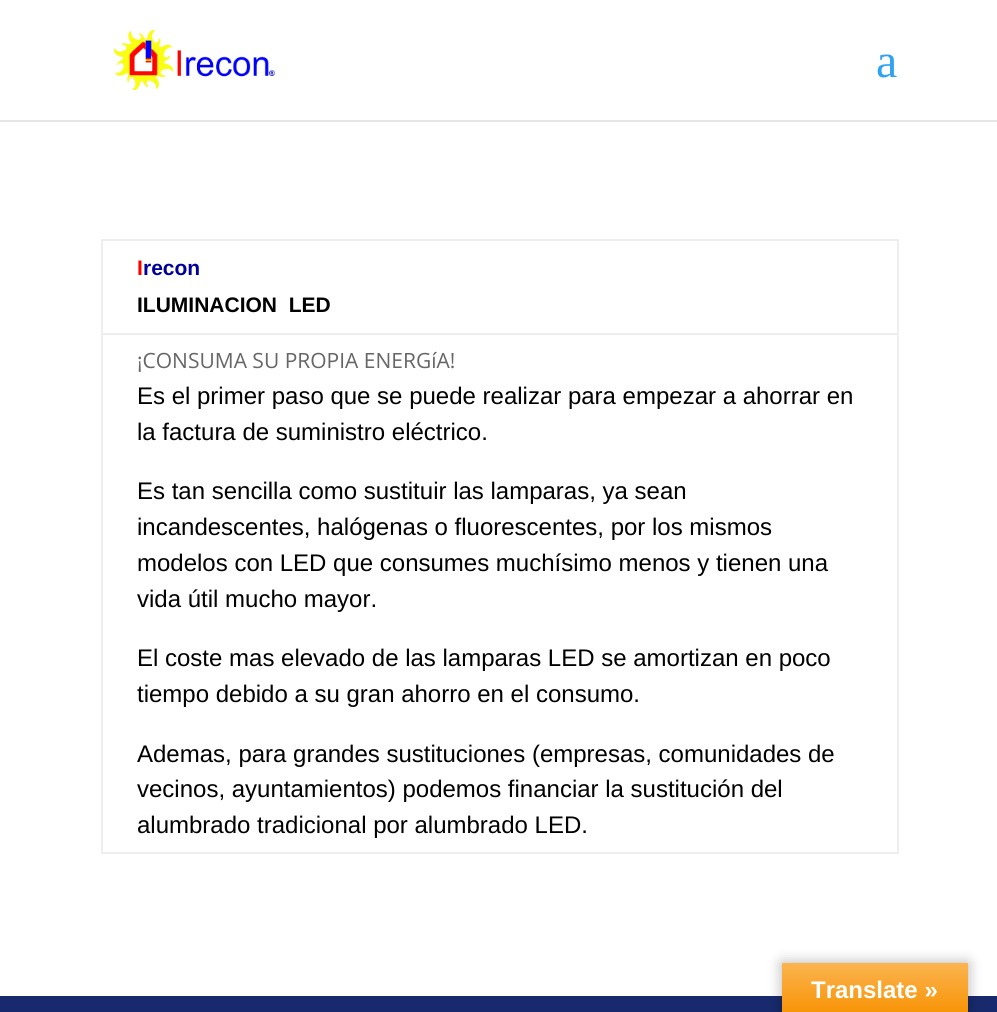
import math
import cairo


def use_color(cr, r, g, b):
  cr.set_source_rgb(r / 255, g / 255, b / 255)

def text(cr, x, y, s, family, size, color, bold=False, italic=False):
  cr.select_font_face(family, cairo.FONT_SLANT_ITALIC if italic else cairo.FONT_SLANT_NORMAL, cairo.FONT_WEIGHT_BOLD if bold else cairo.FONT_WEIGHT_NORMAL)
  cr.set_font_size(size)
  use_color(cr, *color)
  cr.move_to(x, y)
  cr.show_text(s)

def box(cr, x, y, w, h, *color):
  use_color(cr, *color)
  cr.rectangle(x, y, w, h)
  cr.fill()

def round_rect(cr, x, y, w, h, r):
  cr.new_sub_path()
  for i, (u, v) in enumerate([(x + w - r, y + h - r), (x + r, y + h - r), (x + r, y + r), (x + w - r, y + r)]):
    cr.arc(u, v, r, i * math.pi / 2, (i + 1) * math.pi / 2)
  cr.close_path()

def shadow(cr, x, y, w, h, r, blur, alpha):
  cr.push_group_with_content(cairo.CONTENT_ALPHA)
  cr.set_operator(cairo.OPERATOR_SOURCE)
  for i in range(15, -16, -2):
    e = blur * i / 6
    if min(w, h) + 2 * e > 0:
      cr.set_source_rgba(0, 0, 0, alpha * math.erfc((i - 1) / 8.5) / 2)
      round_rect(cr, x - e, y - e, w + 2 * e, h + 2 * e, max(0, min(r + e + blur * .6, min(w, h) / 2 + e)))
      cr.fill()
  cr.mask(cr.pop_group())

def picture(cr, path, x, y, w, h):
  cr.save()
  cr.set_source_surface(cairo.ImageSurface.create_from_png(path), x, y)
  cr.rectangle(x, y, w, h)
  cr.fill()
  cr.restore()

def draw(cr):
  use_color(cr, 255, 255, 255)
  cr.paint()
  use_color(cr, 230, 230, 230)
  cr.new_path()
  cr.move_to(0, 120)
  cr.line_to(0, 122)
  cr.line_to(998, 122)
  cr.line_to(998, 2)
  cr.line_to(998, 120)
  cr.close_path()
  cr.fill()
  picture(cr, "img_01.png", 113, 29, 163, 62)
  box(cr, 101, 239, 798, 2, 238, 238, 238)
  box(cr, 897, 239, 2, 615, 238, 238, 238)
  box(cr, 101, 852, 798, 2, 238, 238, 238)
  box(cr, 101, 239, 2, 615, 238, 238, 238)
  box(cr, 101, 333, 798, 2, 238, 238, 238)
  box(cr, 0, 996, 997, 16, 24, 42, 109)
  use_color(cr, 0, 0, 0)
  shadow(cr, 782, 963, 186, 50, 0, 7, 0.3)
  gradient = cairo.LinearGradient(875, 963, 875, 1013)
  gradient.add_color_stop_rgba(0, 0.984, 0.706, 0.314, 1)
  gradient.add_color_stop_rgba(1, 0.973, 0.58, 0.024, 1)
  cr.set_source(gradient)
  cr.rectangle(782, 963, 186, 49)
  cr.fill()
  text(cr, 876, 77, "a", "Liberation Serif", 48, (46, 163, 242))
  text(cr, 137, 275, "I", "Liberation Sans", 21, (255, 0, 0), bold=True)
  text(cr, 143, 275, "recon", "Liberation Sans", 21, (0, 0, 153), bold=True)
  text(cr, 137, 312, "ILUMINACION  LED", "Liberation Sans", 21, (0, 0, 0), bold=True)
  text(cr, 137, 368, "¡CONSUMA SU PROPIA ENERGíA!", "Open Sans", 21, (102, 102, 102))
  text(cr, 137, 404, "Es el primer paso que se puede realizar para empezar a ahorrar en", "Liberation Sans", 24, (0, 0, 0))
  text(cr, 137, 440, "la factura de suministro eléctrico.", "Liberation Sans", 24, (0, 0, 0))
  text(cr, 137, 499, "Es tan sencilla como sustituir las lamparas, ya sean", "Liberation Sans", 24, (0, 0, 0))
  text(cr, 137, 535, "incandescentes, halógenas o fluorescentes, por los mismos", "Liberation Sans", 24, (0, 0, 0))
  text(cr, 137, 571, "modelos con LED que consumes muchísimo menos y tienen una", "Liberation Sans", 24, (0, 0, 0))
  text(cr, 137, 607, "vida útil mucho mayor.", "Liberation Sans", 24, (0, 0, 0))
  text(cr, 137, 666, "El coste mas elevado de las lamparas LED se amortizan en poco", "Liberation Sans", 24, (0, 0, 0))
  text(cr, 137, 702, "tiempo debido a su gran ahorro en el consumo.", "Liberation Sans", 24, (0, 0, 0))
  text(cr, 137, 762, "Ademas, para grandes sustituciones (empresas, comunidades de", "Liberation Sans", 24, (0, 0, 0))
  text(cr, 137, 797, "vecinos, ayuntamientos) podemos financiar la sustitución del", "Liberation Sans", 24, (0, 0, 0))
  text(cr, 137, 833, "alumbrado tradicional por alumbrado LED.", "Liberation Sans", 24, (0, 0, 0))
  text(cr, 811, 998, "Translate »", "Liberation Sans", 24, (255, 255, 255), bold=True)


surface = cairo.ImageSurface(cairo.FORMAT_RGB24, 997, 1012)
cr = cairo.Context(surface)
options = cairo.FontOptions()
options.set_hint_metrics(cairo.HINT_METRICS_OFF)
options.set_hint_style(cairo.HINT_STYLE_NONE)
cr.set_font_options(options)
cr.set_miter_limit(4)
draw(cr)
surface.write_to_png("out.png")
